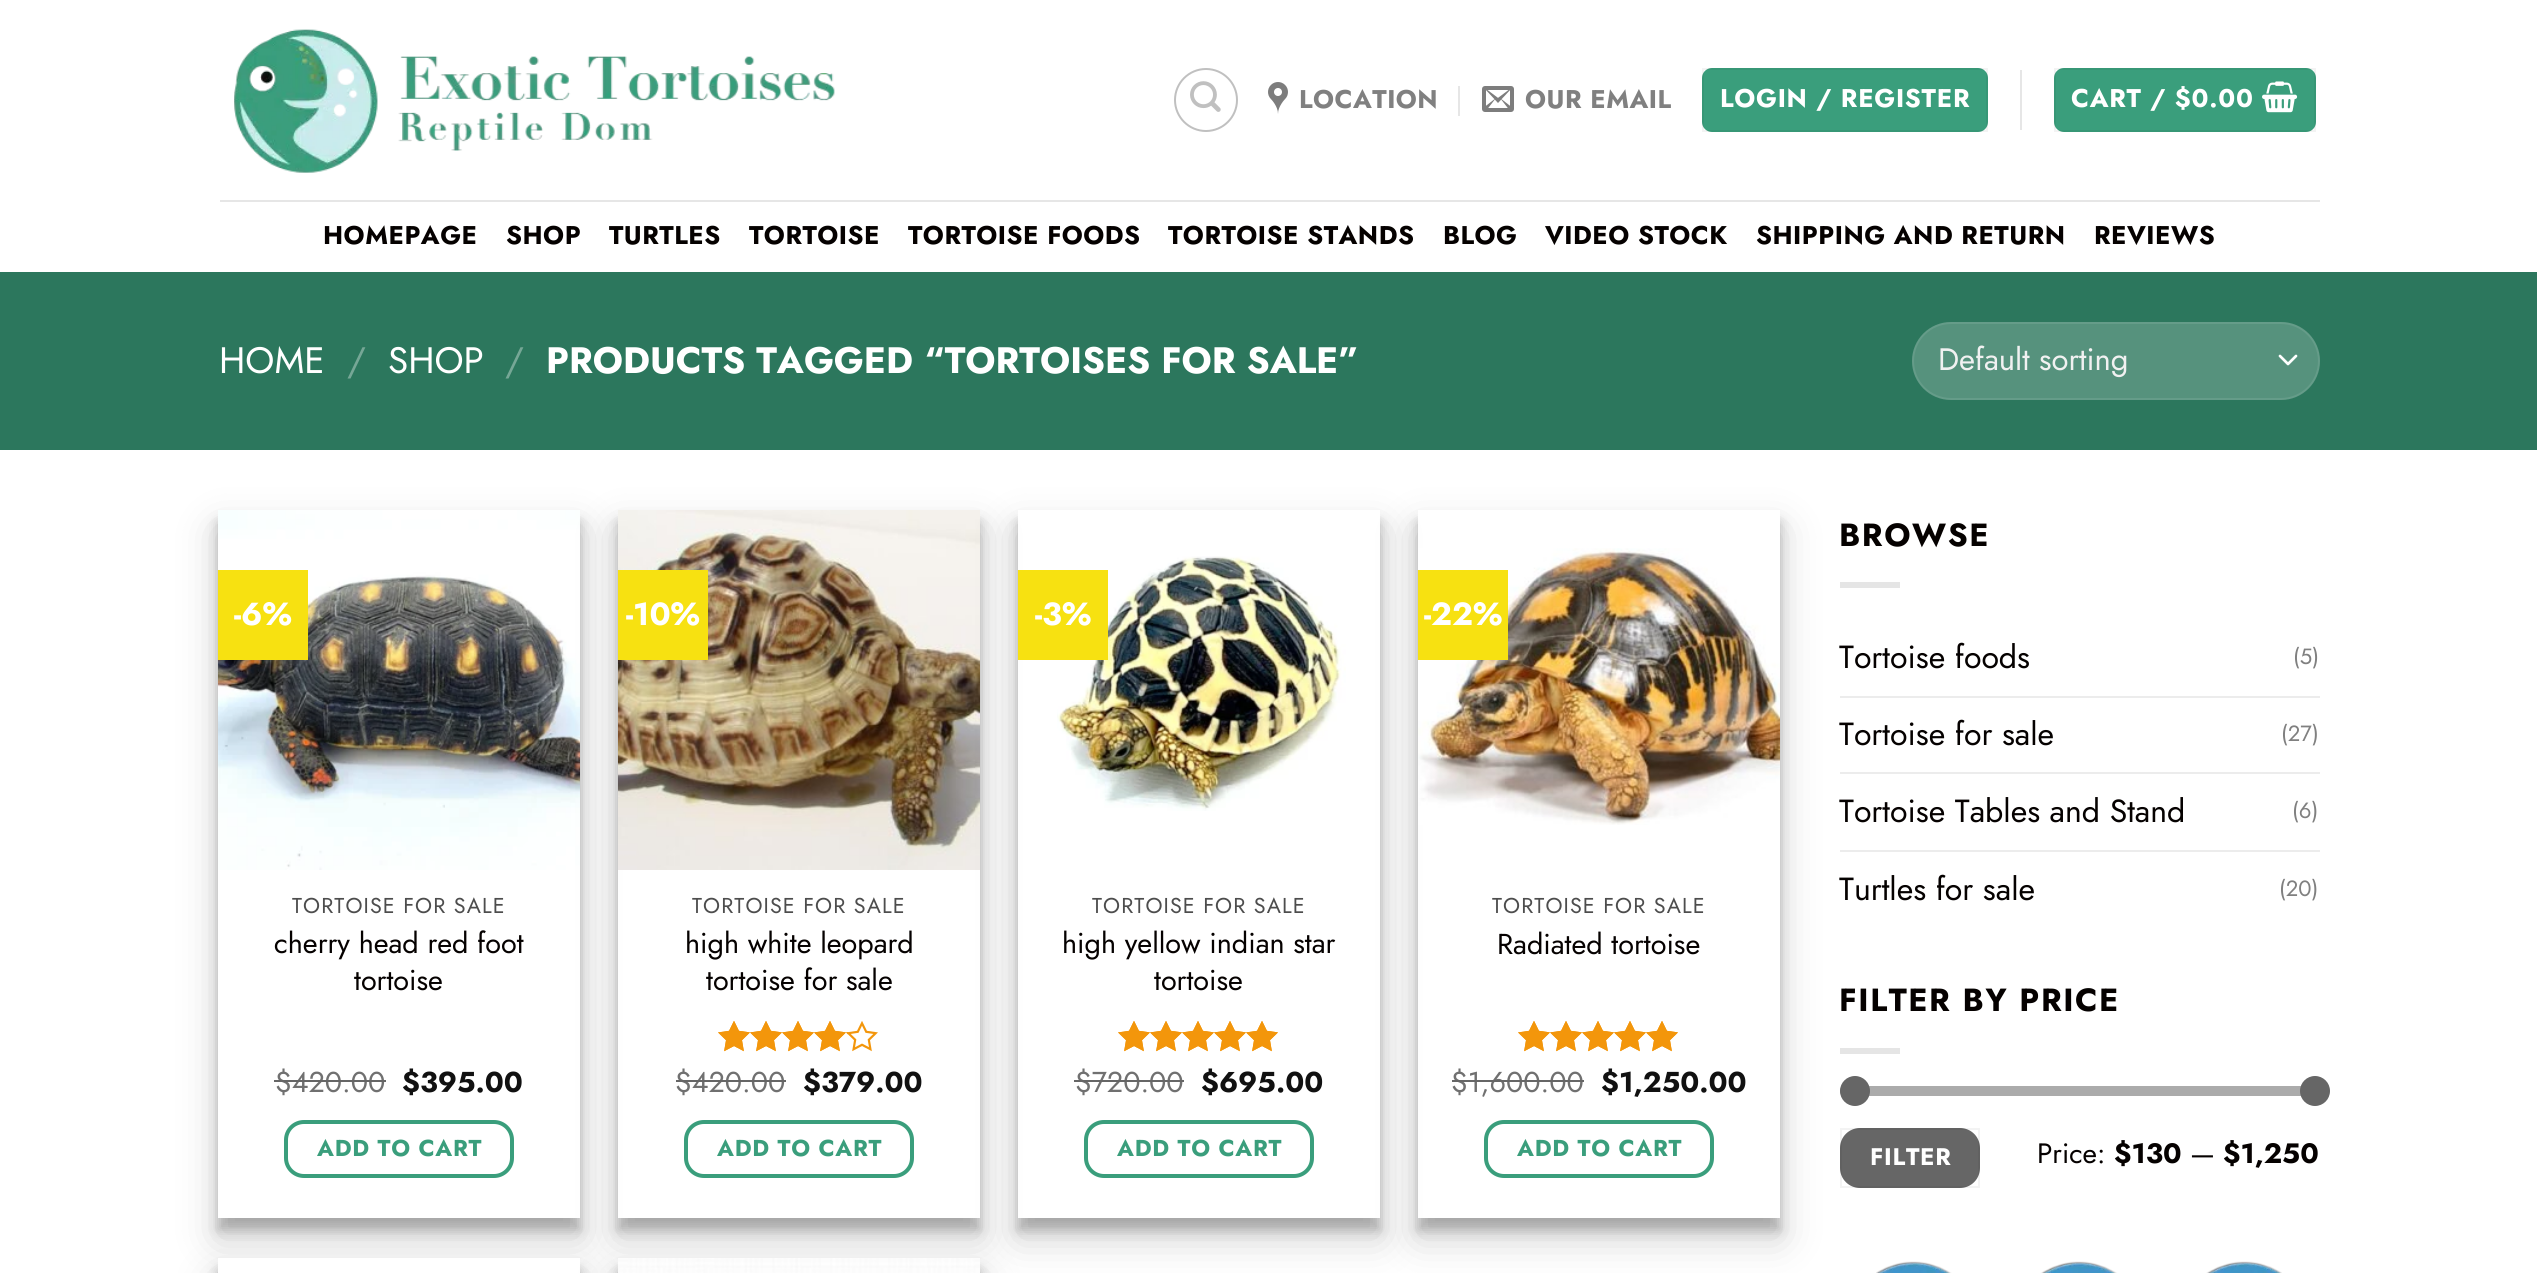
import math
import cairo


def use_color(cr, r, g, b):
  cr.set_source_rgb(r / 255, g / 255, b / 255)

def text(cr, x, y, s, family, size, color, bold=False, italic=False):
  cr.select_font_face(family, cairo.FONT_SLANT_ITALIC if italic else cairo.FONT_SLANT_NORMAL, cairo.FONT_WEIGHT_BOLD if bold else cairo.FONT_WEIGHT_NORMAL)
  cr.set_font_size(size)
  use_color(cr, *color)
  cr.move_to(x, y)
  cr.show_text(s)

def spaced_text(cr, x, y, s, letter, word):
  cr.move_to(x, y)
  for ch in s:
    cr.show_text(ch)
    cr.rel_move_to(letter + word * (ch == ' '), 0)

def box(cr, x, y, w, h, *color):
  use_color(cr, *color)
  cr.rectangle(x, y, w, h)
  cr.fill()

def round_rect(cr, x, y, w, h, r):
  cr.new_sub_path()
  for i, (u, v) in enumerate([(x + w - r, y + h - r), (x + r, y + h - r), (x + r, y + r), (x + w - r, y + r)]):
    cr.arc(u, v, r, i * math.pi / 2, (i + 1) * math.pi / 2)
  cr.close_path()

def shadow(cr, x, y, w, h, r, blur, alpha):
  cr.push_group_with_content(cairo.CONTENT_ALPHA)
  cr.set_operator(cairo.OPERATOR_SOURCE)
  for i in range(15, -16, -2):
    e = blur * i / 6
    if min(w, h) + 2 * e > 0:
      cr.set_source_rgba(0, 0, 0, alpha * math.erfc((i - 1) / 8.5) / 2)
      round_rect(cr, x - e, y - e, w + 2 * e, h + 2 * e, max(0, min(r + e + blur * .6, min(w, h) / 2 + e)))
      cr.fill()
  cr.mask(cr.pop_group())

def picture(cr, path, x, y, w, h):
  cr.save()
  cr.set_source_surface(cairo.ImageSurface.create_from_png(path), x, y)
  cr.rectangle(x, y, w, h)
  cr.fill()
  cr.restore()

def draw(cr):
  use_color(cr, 255, 255, 255)
  cr.paint()
  picture(cr, "img_01.png", 234, 29, 601, 144)
  cr.arc(1206, 100, 31, 0, 2 * math.pi)
  use_color(cr, 192, 192, 192)
  cr.stroke()
  picture(cr, "img_02.png", 1190, 81, 31, 31)
  picture(cr, "img_03.png", 1268, 82, 20, 32)
  box(cr, 1458, 86, 2, 30, 230, 230, 230)
  picture(cr, "img_04.png", 1482, 86, 32, 26)
  use_color(cr, 58, 158, 124)
  round_rect(cr, 1702, 68, 286, 64, 10)
  cr.fill()
  cr.rectangle(1703, 69, 284, 62)
  cr.set_source_rgba(0, 0, 0, 0.05)
  cr.stroke()
  box(cr, 2020, 70, 2, 60, 230, 230, 230)
  use_color(cr, 58, 158, 124)
  round_rect(cr, 2054, 68, 262, 64, 10)
  cr.fill()
  cr.rectangle(2055, 69, 260, 62)
  cr.set_source_rgba(0, 0, 0, 0.05)
  cr.stroke()
  picture(cr, "img_05.png", 2262, 81, 36, 32)
  box(cr, 220, 200, 2100, 2, 230, 230, 230)
  box(cr, 0, 272, 2537, 178, 44, 119, 93)
  use_color(cr, 86, 146, 125)
  round_rect(cr, 1912, 322, 408, 78, 39)
  cr.fill()
  cr.new_path()
  cr.move_to(2280, 356)
  cr.line_to(2288, 364)
  cr.line_to(2296, 356)
  use_color(cr, 255, 255, 255)
  cr.set_line_width(2.7)
  cr.set_line_cap(cairo.LINE_CAP_ROUND)
  cr.set_line_join(cairo.LINE_JOIN_ROUND)
  cr.stroke()
  round_rect(cr, 1913, 323, 406, 76, 38)
  cr.set_source_rgba(1, 1, 1, 0.09)
  cr.set_line_width(2)
  cr.set_line_cap(cairo.LINE_CAP_BUTT)
  cr.set_line_join(cairo.LINE_JOIN_MITER)
  cr.stroke()
  cr.save()
  cr.set_fill_rule(cairo.FILL_RULE_EVEN_ODD)
  cr.new_path()
  cr.move_to(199, 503)
  cr.line_to(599, 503)
  cr.line_to(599, 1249)
  cr.line_to(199, 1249)
  cr.close_path()
  cr.move_to(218, 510)
  cr.line_to(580, 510)
  cr.line_to(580, 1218)
  cr.line_to(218, 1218)
  cr.close_path()
  cr.clip()
  use_color(cr, 0, 0, 0)
  shadow(cr, 218, 522, 362, 708, 0, 6, 0.22)
  cr.restore()
  cr.save()
  cr.set_fill_rule(cairo.FILL_RULE_EVEN_ODD)
  cr.new_path()
  cr.move_to(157, 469)
  cr.line_to(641, 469)
  cr.line_to(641, 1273)
  cr.line_to(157, 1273)
  cr.close_path()
  cr.move_to(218, 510)
  cr.line_to(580, 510)
  cr.line_to(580, 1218)
  cr.line_to(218, 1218)
  cr.close_path()
  cr.clip()
  use_color(cr, 0, 0, 0)
  shadow(cr, 218, 530, 362, 708, 0, 20, 0.19)
  cr.restore()
  picture(cr, "img_06.png", 218, 510, 362, 360)
  box(cr, 218, 570, 90, 90, 247, 225, 17)
  round_rect(cr, 286, 1122, 226, 54, 18)
  use_color(cr, 58, 158, 124)
  cr.set_line_width(4)
  cr.stroke()
  cr.save()
  cr.set_fill_rule(cairo.FILL_RULE_EVEN_ODD)
  cr.new_path()
  cr.move_to(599, 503)
  cr.line_to(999, 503)
  cr.line_to(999, 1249)
  cr.line_to(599, 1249)
  cr.close_path()
  cr.move_to(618, 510)
  cr.line_to(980, 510)
  cr.line_to(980, 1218)
  cr.line_to(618, 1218)
  cr.close_path()
  cr.clip()
  use_color(cr, 0, 0, 0)
  shadow(cr, 618, 522, 362, 708, 0, 6, 0.22)
  cr.restore()
  cr.save()
  cr.set_fill_rule(cairo.FILL_RULE_EVEN_ODD)
  cr.new_path()
  cr.move_to(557, 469)
  cr.line_to(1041, 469)
  cr.line_to(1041, 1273)
  cr.line_to(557, 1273)
  cr.close_path()
  cr.move_to(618, 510)
  cr.line_to(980, 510)
  cr.line_to(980, 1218)
  cr.line_to(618, 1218)
  cr.close_path()
  cr.clip()
  use_color(cr, 0, 0, 0)
  shadow(cr, 618, 530, 362, 708, 0, 20, 0.19)
  cr.restore()
  picture(cr, "img_07.png", 618, 510, 362, 360)
  box(cr, 618, 570, 90, 90, 247, 225, 17)
  picture(cr, "img_08.png", 718, 1021, 160, 31)
  picture(cr, "img_09.png", 718, 1021, 130, 31)
  round_rect(cr, 686, 1122, 226, 54, 18)
  use_color(cr, 58, 158, 124)
  cr.stroke()
  cr.save()
  cr.set_fill_rule(cairo.FILL_RULE_EVEN_ODD)
  cr.new_path()
  cr.move_to(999, 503)
  cr.line_to(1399, 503)
  cr.line_to(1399, 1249)
  cr.line_to(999, 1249)
  cr.close_path()
  cr.move_to(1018, 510)
  cr.line_to(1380, 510)
  cr.line_to(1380, 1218)
  cr.line_to(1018, 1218)
  cr.close_path()
  cr.clip()
  use_color(cr, 0, 0, 0)
  shadow(cr, 1018, 522, 362, 708, 0, 6, 0.22)
  cr.restore()
  cr.save()
  cr.set_fill_rule(cairo.FILL_RULE_EVEN_ODD)
  cr.new_path()
  cr.move_to(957, 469)
  cr.line_to(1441, 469)
  cr.line_to(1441, 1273)
  cr.line_to(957, 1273)
  cr.close_path()
  cr.move_to(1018, 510)
  cr.line_to(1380, 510)
  cr.line_to(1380, 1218)
  cr.line_to(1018, 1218)
  cr.close_path()
  cr.clip()
  use_color(cr, 0, 0, 0)
  shadow(cr, 1018, 530, 362, 708, 0, 20, 0.19)
  cr.restore()
  picture(cr, "img_10.png", 1057, 556, 289, 255)
  box(cr, 1018, 570, 90, 90, 247, 225, 17)
  picture(cr, "img_08.png", 1118, 1021, 160, 31)
  picture(cr, "img_11.png", 1118, 1021, 160, 31)
  round_rect(cr, 1086, 1122, 226, 54, 18)
  use_color(cr, 58, 158, 124)
  cr.stroke()
  cr.save()
  cr.set_fill_rule(cairo.FILL_RULE_EVEN_ODD)
  cr.new_path()
  cr.move_to(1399, 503)
  cr.line_to(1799, 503)
  cr.line_to(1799, 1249)
  cr.line_to(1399, 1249)
  cr.close_path()
  cr.move_to(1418, 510)
  cr.line_to(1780, 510)
  cr.line_to(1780, 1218)
  cr.line_to(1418, 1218)
  cr.close_path()
  cr.clip()
  use_color(cr, 0, 0, 0)
  shadow(cr, 1418, 522, 362, 708, 0, 6, 0.22)
  cr.restore()
  cr.save()
  cr.set_fill_rule(cairo.FILL_RULE_EVEN_ODD)
  cr.new_path()
  cr.move_to(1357, 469)
  cr.line_to(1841, 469)
  cr.line_to(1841, 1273)
  cr.line_to(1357, 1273)
  cr.close_path()
  cr.move_to(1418, 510)
  cr.line_to(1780, 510)
  cr.line_to(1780, 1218)
  cr.line_to(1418, 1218)
  cr.close_path()
  cr.clip()
  use_color(cr, 0, 0, 0)
  shadow(cr, 1418, 530, 362, 708, 0, 20, 0.19)
  cr.restore()
  picture(cr, "img_12.png", 1418, 548, 362, 277)
  box(cr, 1418, 570, 90, 90, 247, 225, 17)
  picture(cr, "img_08.png", 1518, 1021, 160, 31)
  picture(cr, "img_11.png", 1518, 1021, 160, 31)
  round_rect(cr, 1486, 1122, 226, 54, 18)
  use_color(cr, 58, 158, 124)
  cr.stroke()
  use_color(cr, 0, 0, 0)
  shadow(cr, 218, 1270, 362, 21, 0, 6, 0.22)
  shadow(cr, 218, 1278, 362, 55, 0, 20, 0.19)
  box(cr, 218, 1258, 362, 15, 255, 255, 255)
  use_color(cr, 0, 0, 0)
  shadow(cr, 618, 1270, 362, 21, 0, 6, 0.22)
  shadow(cr, 618, 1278, 362, 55, 0, 20, 0.19)
  picture(cr, "img_13.png", 618, 1258, 362, 15)
  box(cr, 1840, 582, 60, 6, 229, 229, 229)
  box(cr, 1840, 696, 480, 2, 236, 236, 236)
  box(cr, 1840, 772, 480, 2, 236, 236, 236)
  box(cr, 1840, 850, 480, 2, 236, 236, 236)
  box(cr, 1840, 1048, 60, 6, 229, 229, 229)
  use_color(cr, 241, 241, 241)
  round_rect(cr, 1840, 1086, 480, 10, 5)
  cr.fill()
  cr.set_source_rgba(0.4, 0.4, 0.4, 0.5)
  round_rect(cr, 1840, 1086, 480, 10, 5)
  cr.fill()
  use_color(cr, 102, 102, 102)
  cr.arc(1855, 1091, 15, 0, 2 * math.pi)
  cr.fill()
  cr.arc(2315, 1091, 15, 0, 2 * math.pi)
  cr.fill()
  round_rect(cr, 1840, 1128, 140, 60, 20)
  cr.fill()
  cr.rectangle(1841, 1129, 138, 58)
  cr.set_source_rgba(0, 0, 0, 0.05)
  cr.set_line_width(2)
  cr.stroke()
  picture(cr, "img_14.png", 1876, 1261, 406, 12)
  cr.select_font_face("Jost", cairo.FONT_SLANT_NORMAL, cairo.FONT_WEIGHT_BOLD)
  cr.set_font_size(25.6)
  use_color(cr, 128, 128, 128)
  spaced_text(cr, 1299, 108, "LOCATION", 0.5, 0)
  spaced_text(cr, 1525, 108, "OUR EMAIL", 0.5, 0)
  use_color(cr, 255, 255, 255)
  spaced_text(cr, 1720, 107, "LOGIN / REGISTER", 0.75, 0)
  spaced_text(cr, 2071, 107, "CART / $0.00", 0.75, 0)
  use_color(cr, 5, 1, 0)
  spaced_text(cr, 323, 244, "HOMEPAGE", 0.5, 0)
  spaced_text(cr, 506, 244, "SHOP", 0.5, 0)
  spaced_text(cr, 609, 244, "TURTLES", 0.5, 0)
  spaced_text(cr, 749, 244, "TORTOISE", 0.5, 0)
  spaced_text(cr, 908, 244, "TORTOISE FOODS", 0.5, 0)
  spaced_text(cr, 1168, 244, "TORTOISE STANDS", 0.5, 0)
  spaced_text(cr, 1443, 244, "BLOG", 0.5, 0)
  spaced_text(cr, 1545, 244, "VIDEO STOCK", 0.5, 0)
  spaced_text(cr, 1756, 244, "SHIPPING AND RETURN", 0.5, 0)
  spaced_text(cr, 2094, 244, "REVIEWS", 0.5, 0)
  text(cr, 219, 373, "HOME", "Jost", 36.8, (255, 255, 255))
  text(cr, 347, 373, "/", "Jost", 36.8, (118, 167, 150))
  text(cr, 388, 373, "SHOP", "Jost", 36.8, (255, 255, 255))
  text(cr, 505, 373, "/", "Jost", 36.8, (118, 167, 150))
  text(cr, 546, 373, "PRODUCTS TAGGED “TORTOISES FOR SALE”", "Jost", 36.8, (255, 255, 255), bold=True)
  text(cr, 1938, 370, "Default sorting", "Jost", 31, (241, 241, 241))
  text(cr, 234, 625, "-6%", "Jost", 32, (255, 255, 255), bold=True)
  cr.select_font_face("Jost")
  cr.set_font_size(21.5)
  use_color(cr, 77, 77, 77)
  spaced_text(cr, 292, 913, "TORTOISE FOR SALE", 1.1, 0)
  text(cr, 274, 953, "cherry head red foot", "Jost", 28.75, (5, 1, 0))
  text(cr, 354, 990, "tortoise", "Jost", 28.75, (5, 1, 0))
  text(cr, 275, 1092, "$420.00", "Jost", 28.75, (112, 112, 112))
  box(cr, 274, 1080, 112, 2, 102, 102, 102)
  text(cr, 402, 1092, "$395.00", "Jost", 28.75, (17, 17, 17), bold=True)
  cr.set_font_size(23)
  use_color(cr, 58, 158, 124)
  spaced_text(cr, 317, 1156, "ADD TO CART", 0.75, 0)
  text(cr, 626, 625, "-10%", "Jost", 32, (255, 255, 255), bold=True)
  cr.select_font_face("Jost")
  cr.set_font_size(21.5)
  use_color(cr, 77, 77, 77)
  spaced_text(cr, 692, 913, "TORTOISE FOR SALE", 1.1, 0)
  text(cr, 685, 953, "high white leopard", "Jost", 28.75, (5, 1, 0))
  text(cr, 706, 990, "tortoise for sale", "Jost", 28.75, (5, 1, 0))
  text(cr, 675, 1092, "$420.00", "Jost", 28.75, (112, 112, 112))
  box(cr, 676, 1080, 110, 2, 102, 102, 102)
  text(cr, 803, 1092, "$379.00", "Jost", 28.75, (17, 17, 17), bold=True)
  cr.set_font_size(23)
  use_color(cr, 58, 158, 124)
  spaced_text(cr, 717, 1156, "ADD TO CART", 0.75, 0)
  text(cr, 1035, 625, "-3%", "Jost", 32, (255, 255, 255), bold=True)
  cr.select_font_face("Jost")
  cr.set_font_size(21.5)
  use_color(cr, 77, 77, 77)
  spaced_text(cr, 1092, 913, "TORTOISE FOR SALE", 1.1, 0)
  text(cr, 1062, 953, "high yellow indian star", "Jost", 28.75, (5, 1, 0))
  text(cr, 1154, 990, "tortoise", "Jost", 28.75, (5, 1, 0))
  text(cr, 1075, 1092, "$720.00", "Jost", 28.75, (112, 112, 112))
  box(cr, 1074, 1080, 110, 2, 102, 102, 102)
  text(cr, 1201, 1092, "$695.00", "Jost", 28.75, (17, 17, 17), bold=True)
  cr.set_font_size(23)
  use_color(cr, 58, 158, 124)
  spaced_text(cr, 1117, 1156, "ADD TO CART", 0.75, 0)
  text(cr, 1424, 625, "-22%", "Jost", 32, (255, 255, 255), bold=True)
  cr.select_font_face("Jost")
  cr.set_font_size(21.5)
  use_color(cr, 77, 77, 77)
  spaced_text(cr, 1492, 913, "TORTOISE FOR SALE", 1.1, 0)
  text(cr, 1497, 954, "Radiated tortoise", "Jost", 28.75, (5, 1, 0))
  text(cr, 1451, 1092, "$1,600.00", "Jost", 28.75, (112, 112, 112))
  box(cr, 1452, 1080, 132, 2, 102, 102, 102)
  text(cr, 1601, 1092, "$1,250.00", "Jost", 28.75, (17, 17, 17), bold=True)
  cr.set_font_size(23)
  use_color(cr, 58, 158, 124)
  spaced_text(cr, 1517, 1156, "ADD TO CART", 0.75, 0)
  cr.set_font_size(32)
  use_color(cr, 5, 1, 0)
  spaced_text(cr, 1839, 546, "BROWSE", 1.6, 0)
  text(cr, 1839, 668, "Tortoise foods", "Jost", 32, (5, 1, 0))
  text(cr, 2293, 664, "(5)", "Jost", 22, (128, 128, 128))
  text(cr, 1839, 745, "Tortoise for sale", "Jost", 32, (5, 1, 0))
  text(cr, 2281, 741, "(27)", "Jost", 22, (128, 128, 128))
  text(cr, 1839, 822, "Tortoise Tables and Stand", "Jost", 32, (5, 1, 0))
  text(cr, 2292, 818, "(6)", "Jost", 22, (128, 128, 128))
  text(cr, 1839, 900, "Turtles for sale", "Jost", 32, (5, 1, 0))
  text(cr, 2279, 896, "(20)", "Jost", 22, (128, 128, 128))
  cr.select_font_face("Jost", cairo.FONT_SLANT_NORMAL, cairo.FONT_WEIGHT_BOLD)
  cr.set_font_size(32)
  use_color(cr, 5, 1, 0)
  spaced_text(cr, 1839, 1011, "FILTER BY PRICE", 1.6, 0)
  cr.set_font_size(24)
  use_color(cr, 255, 255, 255)
  spaced_text(cr, 1870, 1165, "FILTER", 0.75, 0)
  text(cr, 2037, 1163, "Price:", "Jost", 28, (5, 1, 0))
  text(cr, 2114, 1163, "$130", "Jost", 28, (5, 1, 0), bold=True)
  text(cr, 2190, 1163, "—", "Jost", 28, (5, 1, 0))
  text(cr, 2223, 1163, "$1,250", "Jost", 28, (5, 1, 0), bold=True)


surface = cairo.ImageSurface(cairo.FORMAT_RGB24, 2537, 1273)
cr = cairo.Context(surface)
options = cairo.FontOptions()
options.set_hint_metrics(cairo.HINT_METRICS_OFF)
options.set_hint_style(cairo.HINT_STYLE_NONE)
cr.set_font_options(options)
cr.set_miter_limit(4)
draw(cr)
surface.write_to_png("out.png")
